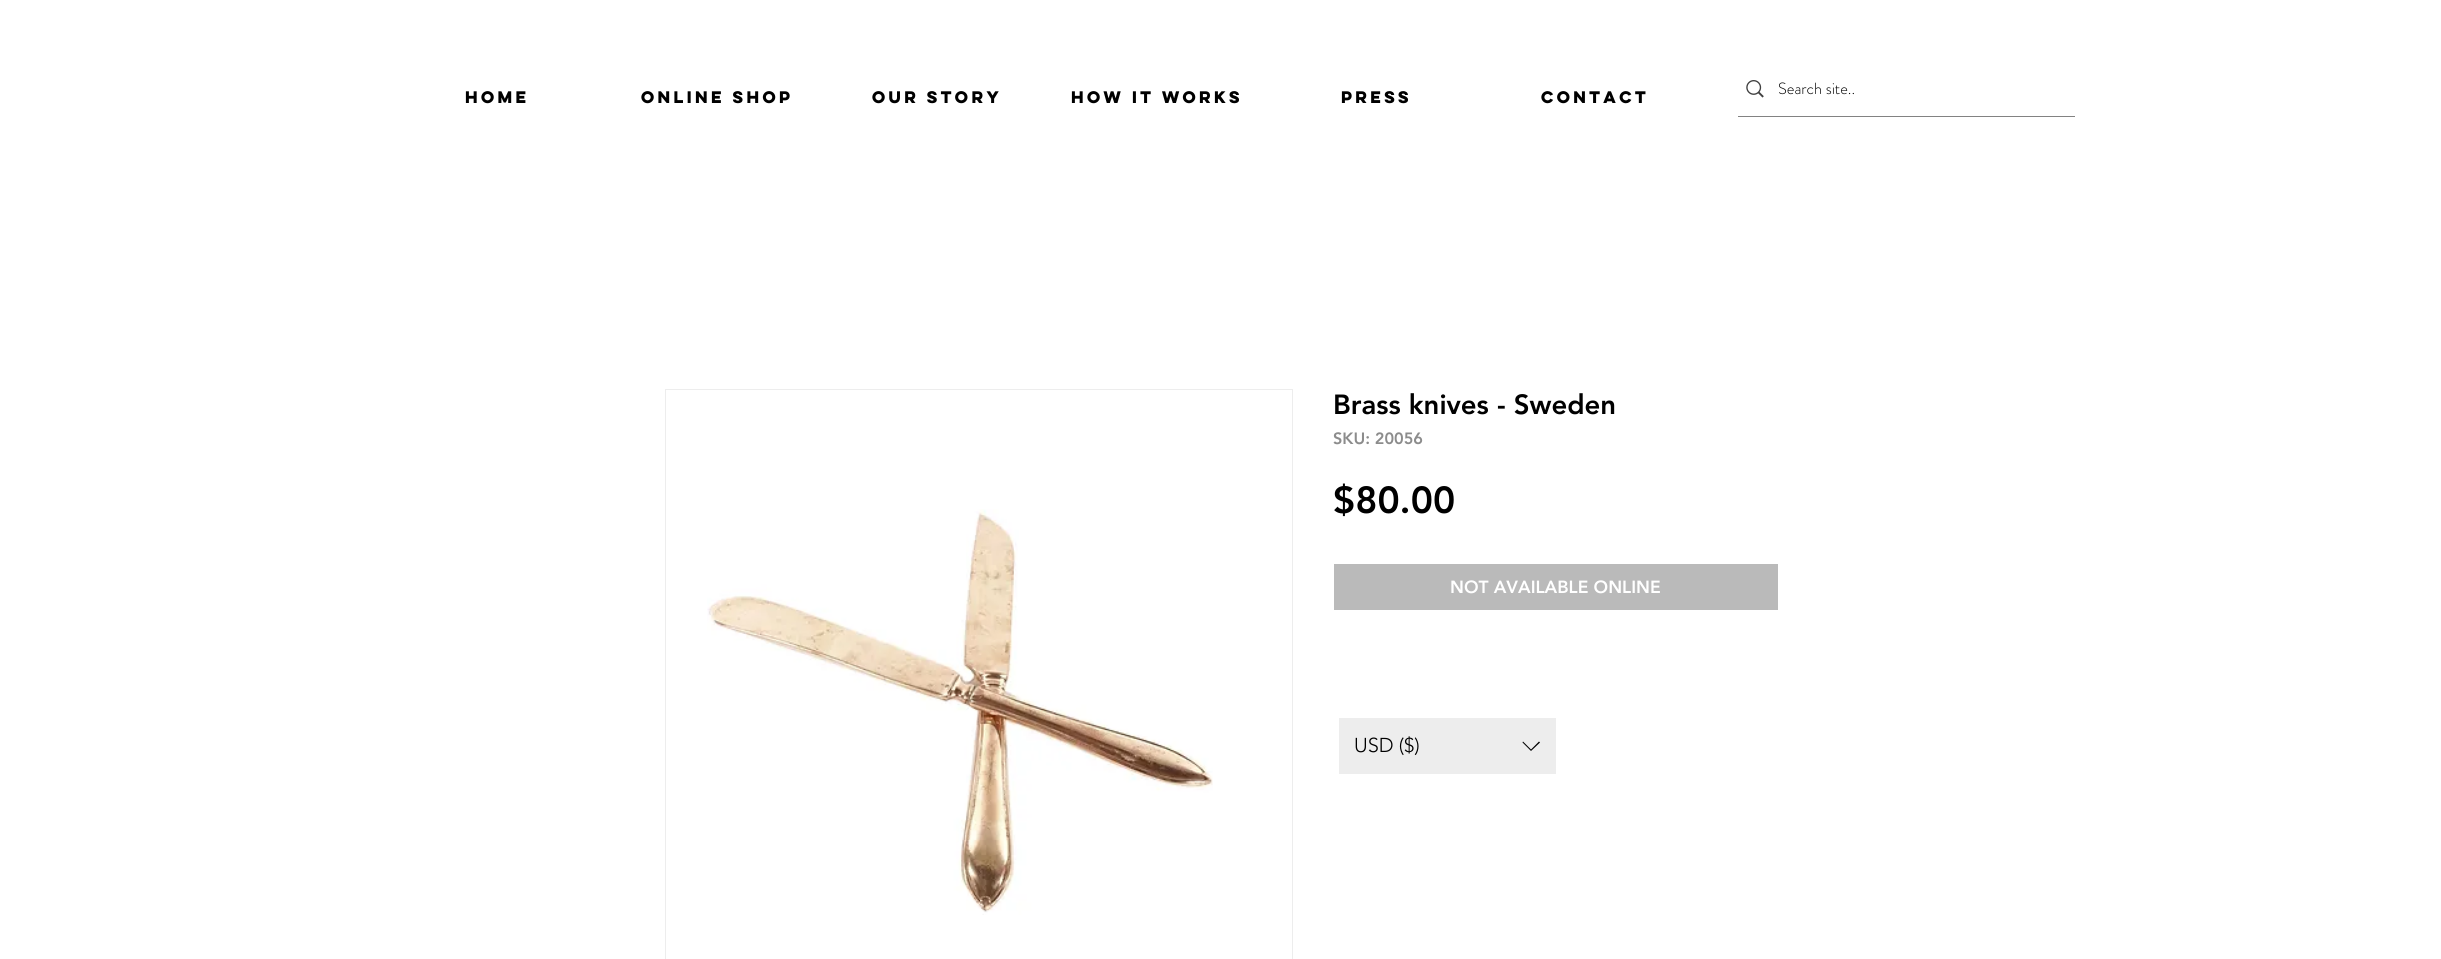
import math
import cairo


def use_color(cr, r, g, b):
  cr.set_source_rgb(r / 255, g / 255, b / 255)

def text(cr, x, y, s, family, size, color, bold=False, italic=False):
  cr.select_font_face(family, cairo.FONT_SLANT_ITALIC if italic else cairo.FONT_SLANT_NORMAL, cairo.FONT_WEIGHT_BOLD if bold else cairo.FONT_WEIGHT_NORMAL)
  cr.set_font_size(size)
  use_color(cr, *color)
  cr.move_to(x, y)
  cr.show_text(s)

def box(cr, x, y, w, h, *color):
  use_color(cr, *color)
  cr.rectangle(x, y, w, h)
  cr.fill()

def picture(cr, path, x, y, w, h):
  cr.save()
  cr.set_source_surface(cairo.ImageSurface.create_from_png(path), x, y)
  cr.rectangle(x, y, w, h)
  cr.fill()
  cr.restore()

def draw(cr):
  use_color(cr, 255, 255, 255)
  cr.paint()
  box(cr, 1738, 116, 337, 1, 130, 130, 130)
  picture(cr, "img_01.png", 1746, 80, 18, 18)
  cr.rectangle(665.5, 389.5, 627, 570)
  use_color(cr, 237, 237, 237)
  cr.set_line_width(1)
  cr.stroke()
  picture(cr, "img_02.png", 707, 509, 506, 406)
  box(cr, 1334, 564, 444, 46, 186, 186, 186)
  box(cr, 1339, 718, 217, 56, 237, 237, 237)
  use_color(cr, 0, 0, 0)
  cr.set_fill_rule(cairo.FILL_RULE_EVEN_ODD)
  cr.new_path()
  cr.move_to(1539, 741.5)
  cr.line_to(1540, 742.5)
  cr.line_to(1531, 751)
  cr.line_to(1522.5, 742.5)
  cr.line_to(1523, 741.5)
  cr.line_to(1531, 749.5)
  cr.close_path()
  cr.fill()
  text(cr, 1778, 94, "Search site..", "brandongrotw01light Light", 16.25, (0, 0, 0))
  text(cr, 465, 103, "HOME", "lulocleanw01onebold", 15, (0, 0, 0), bold=True)
  text(cr, 641, 103, "ONLINE SHOP", "lulocleanw01onebold", 15, (0, 0, 0), bold=True)
  text(cr, 872, 103, "OUR STORY", "lulocleanw01onebold", 15, (0, 0, 0), bold=True)
  text(cr, 1071, 103, "HOW IT WORKS", "lulocleanw01onebold", 15, (0, 0, 0), bold=True)
  text(cr, 1341, 103, "PRESS", "lulocleanw01onebold", 15, (0, 0, 0), bold=True)
  text(cr, 1541, 103, "CONTACT", "lulocleanw01onebold", 15, (0, 0, 0), bold=True)
  text(cr, 1333, 414, "Brass knives - Sweden", "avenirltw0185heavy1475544 Black", 27.5, (0, 0, 0))
  text(cr, 1333, 444, "SKU: 20056", "avenirltw0185heavy1475544 Black", 16.25, (140, 140, 140))
  text(cr, 1333, 513, "$80.00", "avenirltw0185heavy1475544 Black", 37.5, (0, 0, 0))
  text(cr, 1450, 593, "NOT AVAILABLE ONLINE", "avenirltw0185heavy1475544 Black", 17.5, (255, 255, 255))
  text(cr, 1354, 752, "USD ($)", "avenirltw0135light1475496 Light", 20, (0, 0, 0))


surface = cairo.ImageSurface(cairo.FORMAT_RGB24, 2441, 959)
cr = cairo.Context(surface)
options = cairo.FontOptions()
options.set_hint_metrics(cairo.HINT_METRICS_OFF)
options.set_hint_style(cairo.HINT_STYLE_NONE)
cr.set_font_options(options)
cr.set_miter_limit(4)
draw(cr)
surface.write_to_png("out.png")
